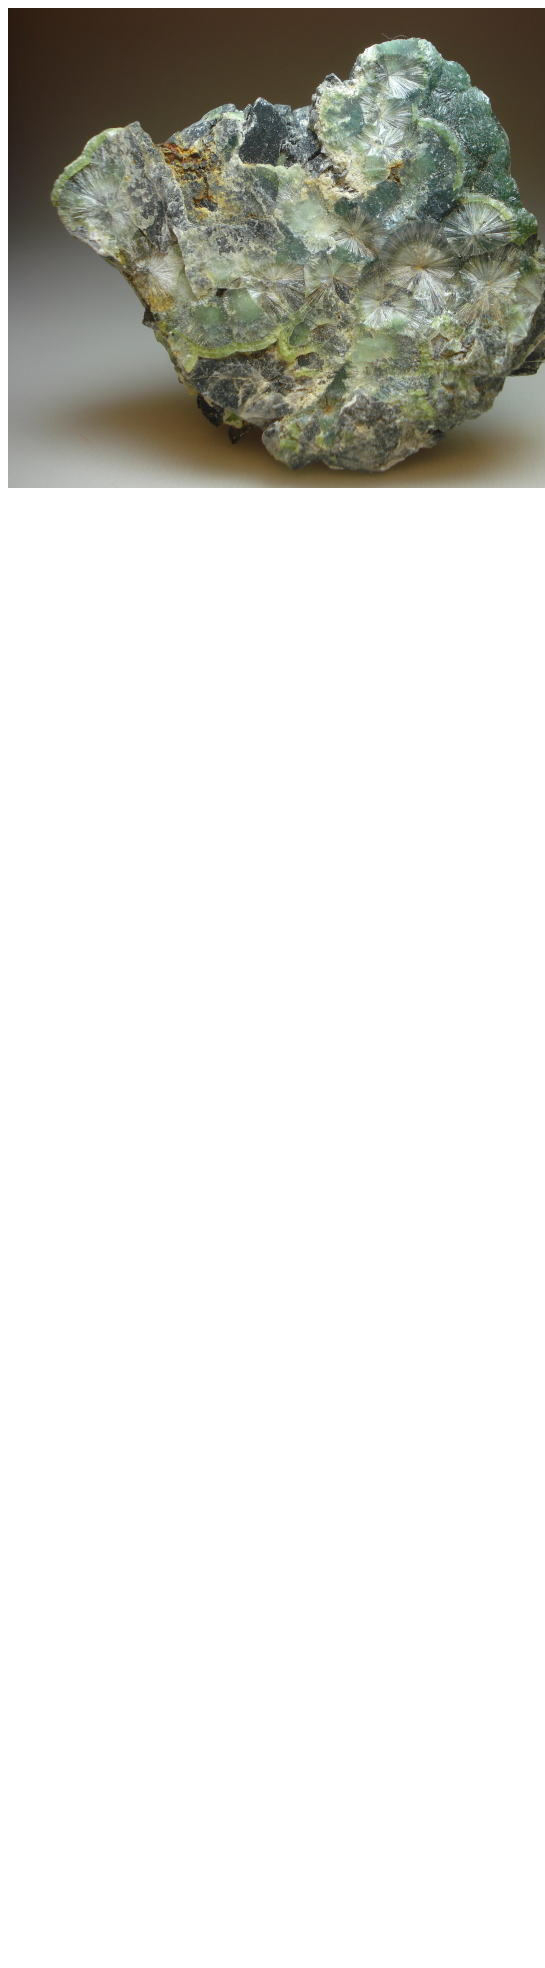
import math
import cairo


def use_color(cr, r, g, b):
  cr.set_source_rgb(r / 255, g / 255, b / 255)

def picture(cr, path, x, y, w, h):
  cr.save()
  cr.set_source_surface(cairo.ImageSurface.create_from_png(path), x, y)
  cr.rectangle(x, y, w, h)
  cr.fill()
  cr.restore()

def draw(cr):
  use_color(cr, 255, 255, 255)
  cr.paint()
  picture(cr, "img_01.png", 8, 8, 537, 480)


surface = cairo.ImageSurface(cairo.FORMAT_RGB24, 545, 1968)
cr = cairo.Context(surface)
options = cairo.FontOptions()
options.set_hint_metrics(cairo.HINT_METRICS_OFF)
options.set_hint_style(cairo.HINT_STYLE_NONE)
cr.set_font_options(options)
cr.set_miter_limit(4)
draw(cr)
surface.write_to_png("out.png")
